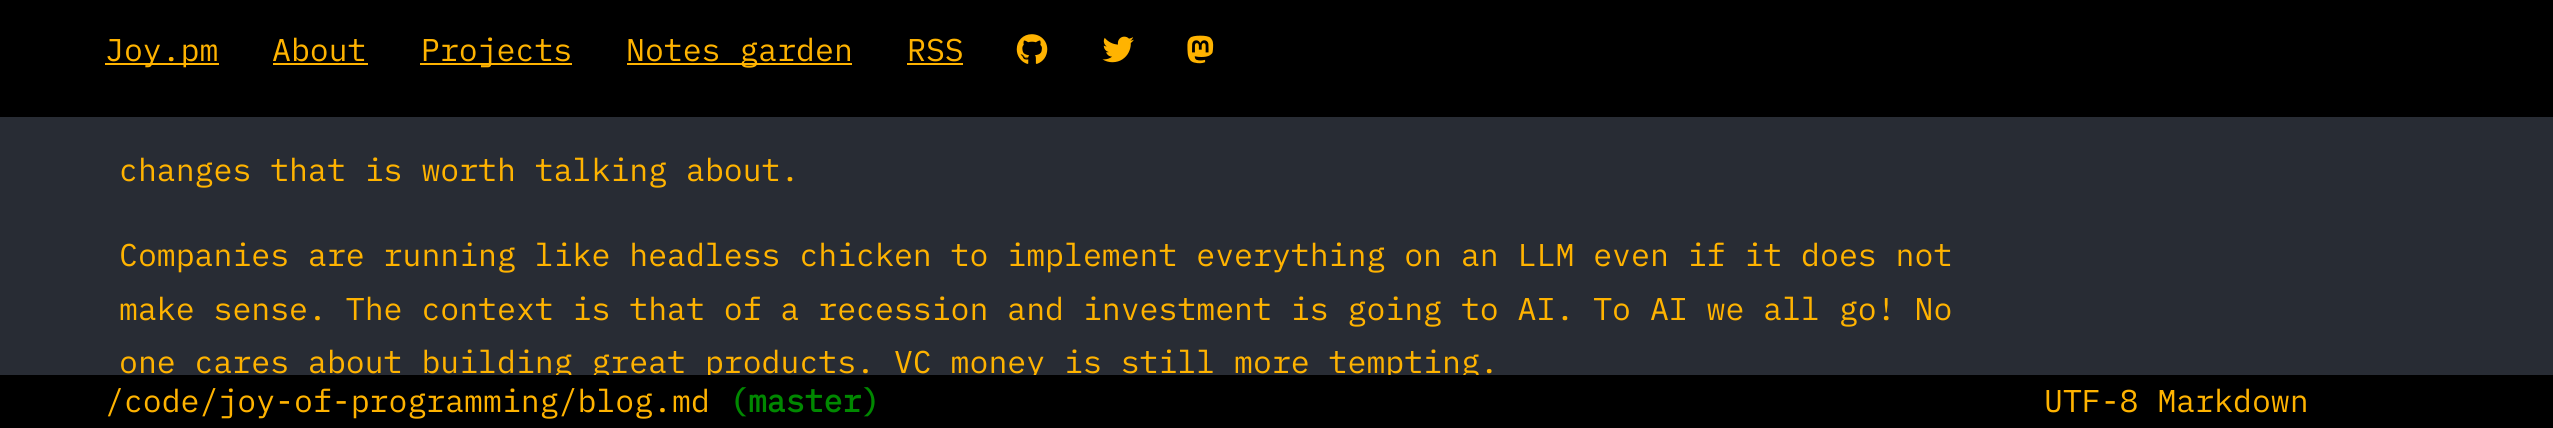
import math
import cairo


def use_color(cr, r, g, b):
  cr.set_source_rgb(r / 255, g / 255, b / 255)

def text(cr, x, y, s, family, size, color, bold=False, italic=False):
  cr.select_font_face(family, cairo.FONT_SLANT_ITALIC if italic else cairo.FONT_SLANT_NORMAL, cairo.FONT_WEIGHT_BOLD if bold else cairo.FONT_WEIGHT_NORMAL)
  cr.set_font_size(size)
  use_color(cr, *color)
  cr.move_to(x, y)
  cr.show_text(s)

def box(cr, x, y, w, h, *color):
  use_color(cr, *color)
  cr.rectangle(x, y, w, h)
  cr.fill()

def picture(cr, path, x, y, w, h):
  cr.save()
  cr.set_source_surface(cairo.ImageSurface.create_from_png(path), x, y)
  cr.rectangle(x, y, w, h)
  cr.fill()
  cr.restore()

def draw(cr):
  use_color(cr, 40, 44, 52)
  cr.paint()
  box(cr, 0, 0, 2553, 117, 0, 0, 0)
  box(cr, 105, 63, 114, 2, 255, 179, 0)
  box(cr, 273, 63, 95, 2, 255, 179, 0)
  box(cr, 420, 63, 152, 2, 255, 179, 0)
  box(cr, 627, 63, 225, 2, 255, 179, 0)
  box(cr, 907, 63, 56, 2, 255, 179, 0)
  picture(cr, "img_01.png", 1016, 34, 32, 30)
  picture(cr, "img_02.png", 1102, 36, 32, 27)
  picture(cr, "img_03.png", 1187, 35, 27, 29)
  text(cr, 105, 61, "Joy.pm", "IBM Plex Mono", 31.5, (255, 179, 0))
  text(cr, 272, 61, "About", "IBM Plex Mono", 31.5, (255, 179, 0))
  text(cr, 421, 61, "Projects", "IBM Plex Mono", 31.5, (255, 179, 0))
  text(cr, 626, 61, "Notes garden", "IBM Plex Mono", 31.5, (255, 179, 0))
  text(cr, 907, 61, "RSS", "IBM Plex Mono", 31.5, (255, 179, 0))
  text(cr, 119, 181, "changes that is worth talking about.", "IBM Plex Mono", 31.5, (255, 179, 0))
  text(cr, 119, 266, "Companies are running like headless chicken to implement everything on an LLM even if it does not", "IBM Plex Mono", 31.5, (255, 179, 0))
  text(cr, 119, 320, "make sense. The context is that of a recession and investment is going to AI. To AI we all go! No", "IBM Plex Mono", 31.5, (255, 179, 0))
  text(cr, 119, 373, "one cares about building great products. VC money is still more tempting.", "IBM Plex Mono", 31.5, (255, 179, 0))
  box(cr, 0, 375, 2553, 53, 0, 0, 0)
  text(cr, 105, 412, "/code/joy-of-programming/blog.md", "IBM Plex Mono", 31.5, (255, 179, 0))
  text(cr, 729, 412, "(master)", "IBM Plex Mono", 31.5, (0, 136, 0), bold=True)
  text(cr, 2044, 412, "UTF-8 Markdown", "IBM Plex Mono", 31.5, (255, 179, 0))


surface = cairo.ImageSurface(cairo.FORMAT_RGB24, 2553, 428)
cr = cairo.Context(surface)
options = cairo.FontOptions()
options.set_hint_metrics(cairo.HINT_METRICS_OFF)
options.set_hint_style(cairo.HINT_STYLE_NONE)
cr.set_font_options(options)
cr.set_miter_limit(4)
draw(cr)
surface.write_to_png("out.png")
